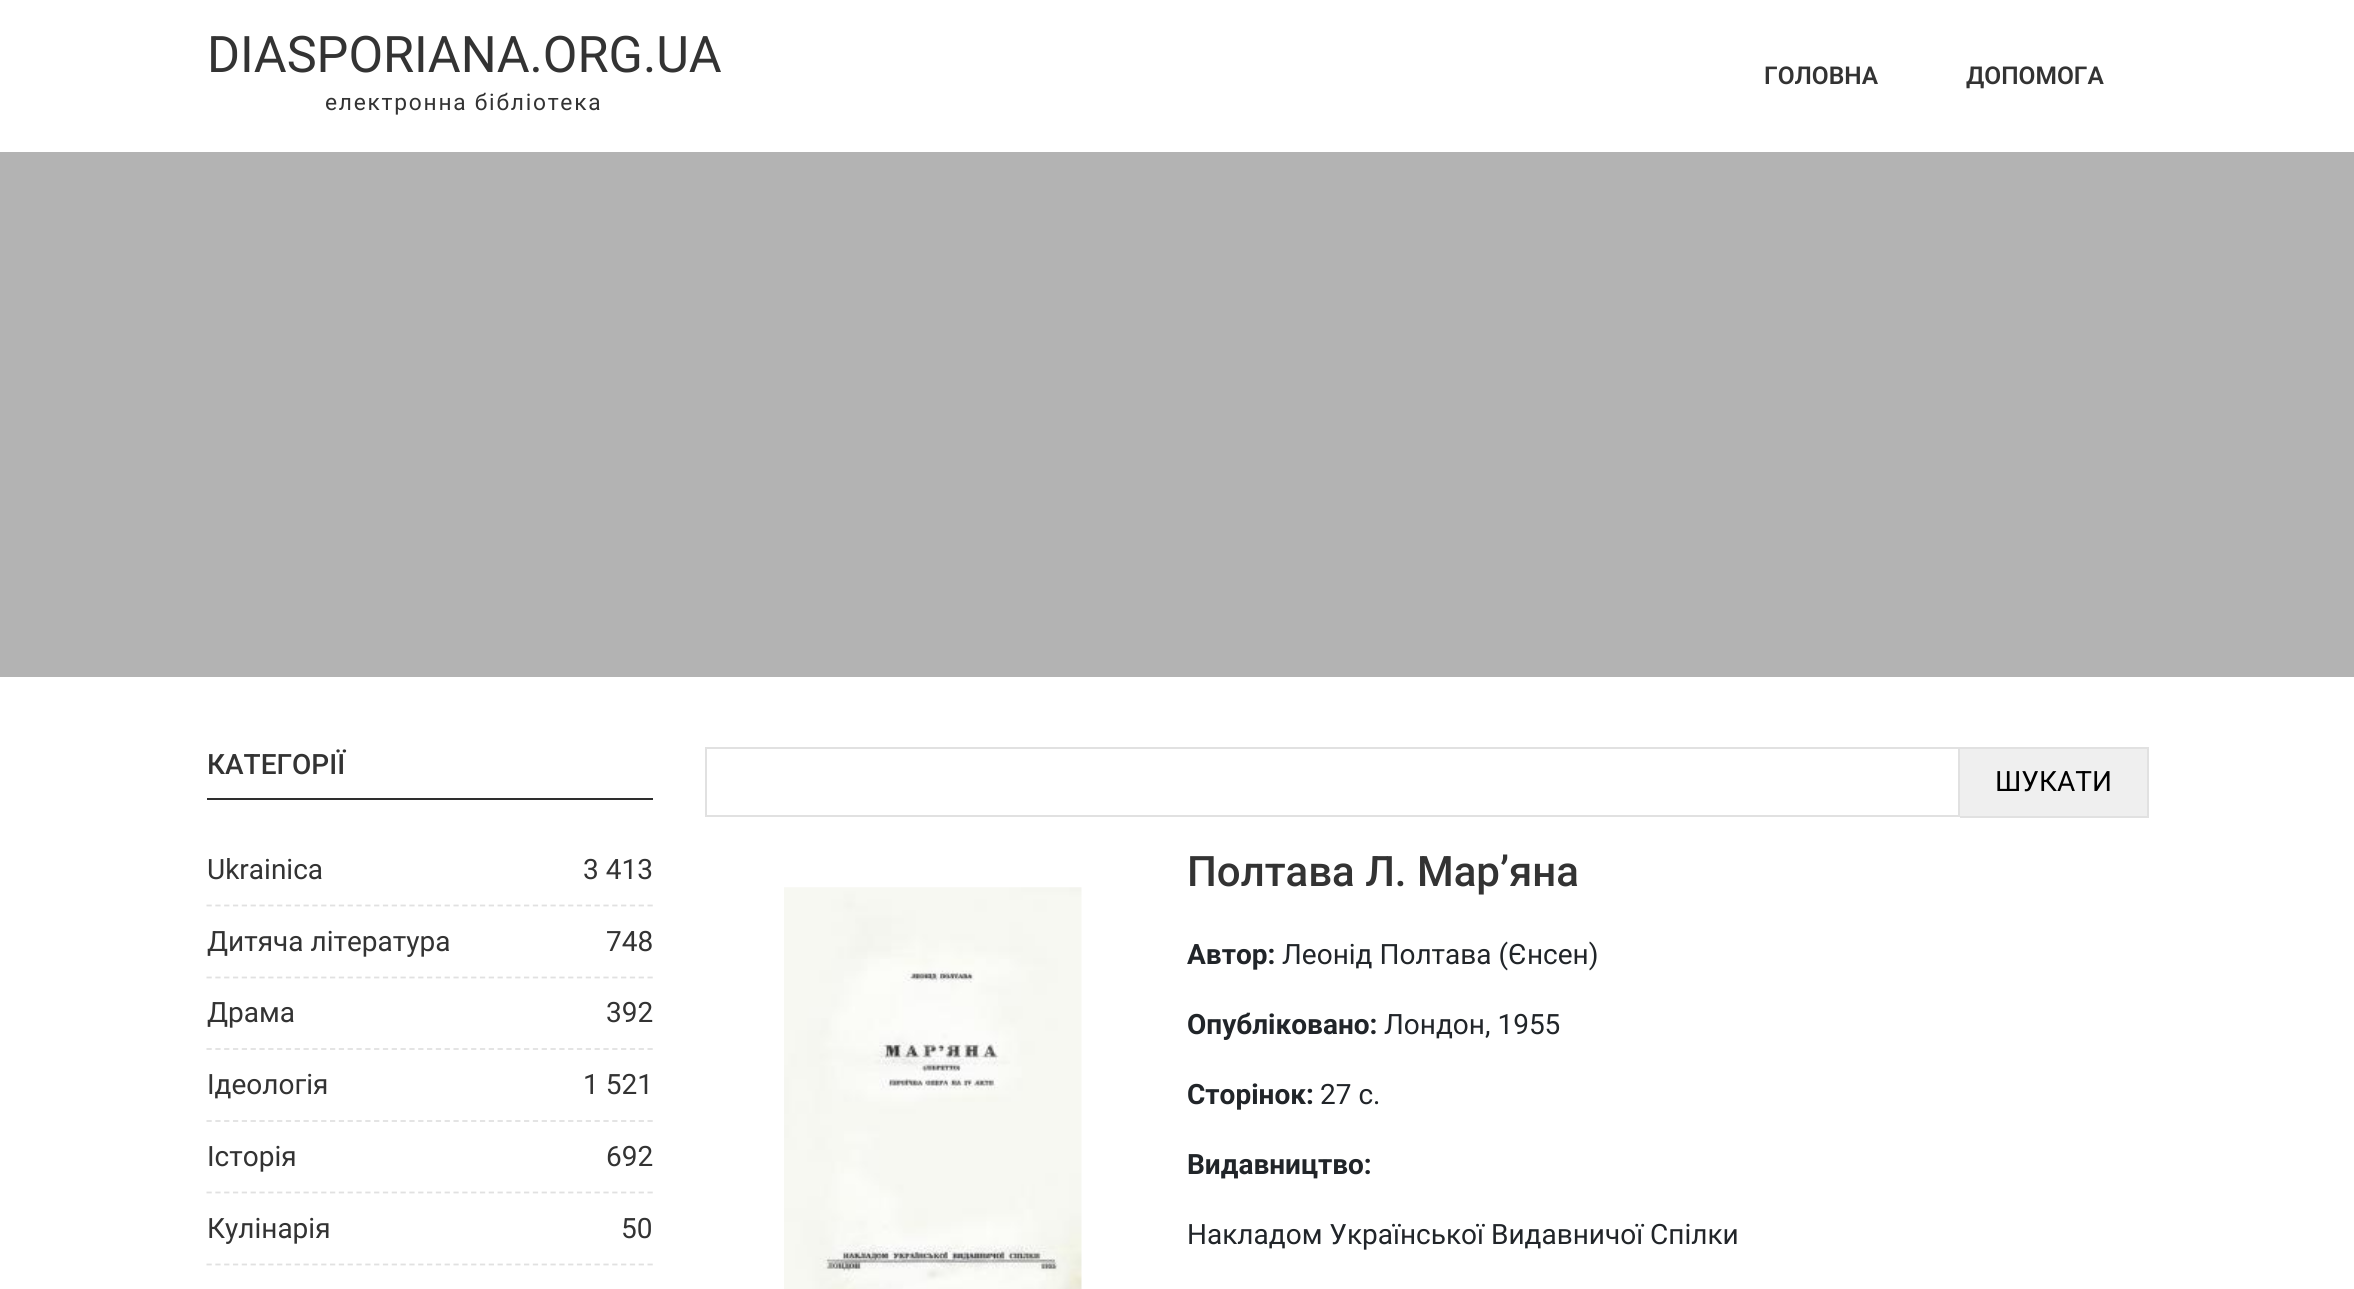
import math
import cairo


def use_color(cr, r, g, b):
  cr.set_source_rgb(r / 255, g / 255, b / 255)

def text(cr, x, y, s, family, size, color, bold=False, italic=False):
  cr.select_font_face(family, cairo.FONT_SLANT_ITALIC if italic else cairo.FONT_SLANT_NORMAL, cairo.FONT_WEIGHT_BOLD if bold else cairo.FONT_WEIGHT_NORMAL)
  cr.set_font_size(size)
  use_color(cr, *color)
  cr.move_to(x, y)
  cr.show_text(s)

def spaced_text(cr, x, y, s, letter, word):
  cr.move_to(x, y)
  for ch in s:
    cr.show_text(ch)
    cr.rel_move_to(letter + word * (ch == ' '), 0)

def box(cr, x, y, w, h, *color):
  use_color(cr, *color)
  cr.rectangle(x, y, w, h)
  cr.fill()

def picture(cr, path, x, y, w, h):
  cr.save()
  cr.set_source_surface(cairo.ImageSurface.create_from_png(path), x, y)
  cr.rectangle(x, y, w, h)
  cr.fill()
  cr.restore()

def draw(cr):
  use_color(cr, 255, 255, 255)
  cr.paint()
  box(cr, 0, 152, 2354, 525, 179, 179, 179)
  box(cr, 207, 798, 446, 2, 46, 46, 46)
  cr.new_path()
  cr.move_to(206.5, 905.5)
  cr.line_to(653, 905.5)
  use_color(cr, 225, 225, 225)
  cr.set_line_width(1.8)
  cr.set_dash([5.25, 3.57])
  cr.stroke()
  cr.new_path()
  cr.move_to(206.5, 977.5)
  cr.line_to(653, 977.5)
  cr.stroke()
  cr.new_path()
  cr.move_to(206.5, 1049)
  cr.line_to(653, 1049)
  cr.stroke()
  cr.new_path()
  cr.move_to(206.5, 1121)
  cr.line_to(653, 1121)
  cr.stroke()
  cr.new_path()
  cr.move_to(206.5, 1192.5)
  cr.line_to(653, 1192.5)
  cr.stroke()
  cr.new_path()
  cr.move_to(206.5, 1264.5)
  cr.line_to(653, 1264.5)
  cr.stroke()
  cr.rectangle(706, 748, 1253, 68)
  cr.set_line_width(2)
  cr.set_dash([])
  cr.stroke()
  box(cr, 1960, 749, 187, 67, 239, 239, 239)
  box(cr, 1960, 747, 189, 2, 225, 225, 225)
  box(cr, 2147, 747, 2, 70, 225, 225, 225)
  box(cr, 1960, 816, 189, 2, 225, 225, 225)
  picture(cr, "img_01.png", 784, 887, 298, 402)
  text(cr, 207, 72, "DIASPORIANA.ORG.UA", "Roboto", 50.4, (51, 51, 51))
  cr.set_font_size(22.75)
  spaced_text(cr, 325, 110, "електронна бібліотека", 1.75, 0)
  text(cr, 1764, 84, "ГОЛОВНА", "Roboto SemiBold", 24.5, (51, 51, 51))
  text(cr, 1966, 84, "ДОПОМОГА", "Roboto SemiBold", 24.5, (51, 51, 51))
  text(cr, 207, 774, "КАТЕГОРІЇ", "Roboto Medium", 28, (51, 51, 51))
  text(cr, 207, 879, "Ukrainica", "Roboto", 28, (51, 51, 51))
  text(cr, 583, 879, "3 413", "Roboto", 28, (51, 51, 51))
  text(cr, 207, 951, "Дитяча література", "Roboto", 28, (51, 51, 51))
  text(cr, 606, 951, "748", "Roboto", 28, (51, 51, 51))
  text(cr, 207, 1022, "Драма", "Roboto", 28, (51, 51, 51))
  text(cr, 606, 1022, "392", "Roboto", 28, (51, 51, 51))
  text(cr, 207, 1094, "Ідеологія", "Roboto", 28, (51, 51, 51))
  text(cr, 583, 1094, "1 521", "Roboto", 28, (51, 51, 51))
  text(cr, 207, 1166, "Історія", "Roboto", 28, (51, 51, 51))
  text(cr, 606, 1166, "692", "Roboto", 28, (51, 51, 51))
  text(cr, 207, 1238, "Кулінарія", "Roboto", 28, (51, 51, 51))
  text(cr, 621, 1238, "50", "Roboto", 28, (51, 51, 51))
  text(cr, 1995, 791, "ШУКАТИ", "Roboto", 28, (0, 0, 0))
  text(cr, 1187, 886, "Полтава Л. Мар’яна", "Roboto Medium", 42, (51, 51, 51))
  text(cr, 1187, 964, "Автор:", "Roboto", 28, (33, 37, 41), bold=True)
  text(cr, 1282, 964, "Леонід Полтава (Єнсен)", "Roboto", 28, (33, 37, 41))
  text(cr, 1187, 1034, "Опубліковано:", "Roboto", 28, (33, 37, 41), bold=True)
  text(cr, 1384, 1034, "Лондон, 1955", "Roboto", 28, (33, 37, 41))
  text(cr, 1187, 1104, "Сторінок:", "Roboto", 28, (33, 37, 41), bold=True)
  text(cr, 1320, 1104, "27 с.", "Roboto", 28, (33, 37, 41))
  text(cr, 1187, 1174, "Видавництво:", "Roboto", 28, (33, 37, 41), bold=True)
  text(cr, 1187, 1244, "Накладом Української Видавничої Спілки", "Roboto", 28, (33, 37, 41))


surface = cairo.ImageSurface(cairo.FORMAT_RGB24, 2354, 1289)
cr = cairo.Context(surface)
options = cairo.FontOptions()
options.set_hint_metrics(cairo.HINT_METRICS_OFF)
options.set_hint_style(cairo.HINT_STYLE_NONE)
cr.set_font_options(options)
cr.set_miter_limit(4)
draw(cr)
surface.write_to_png("out.png")
